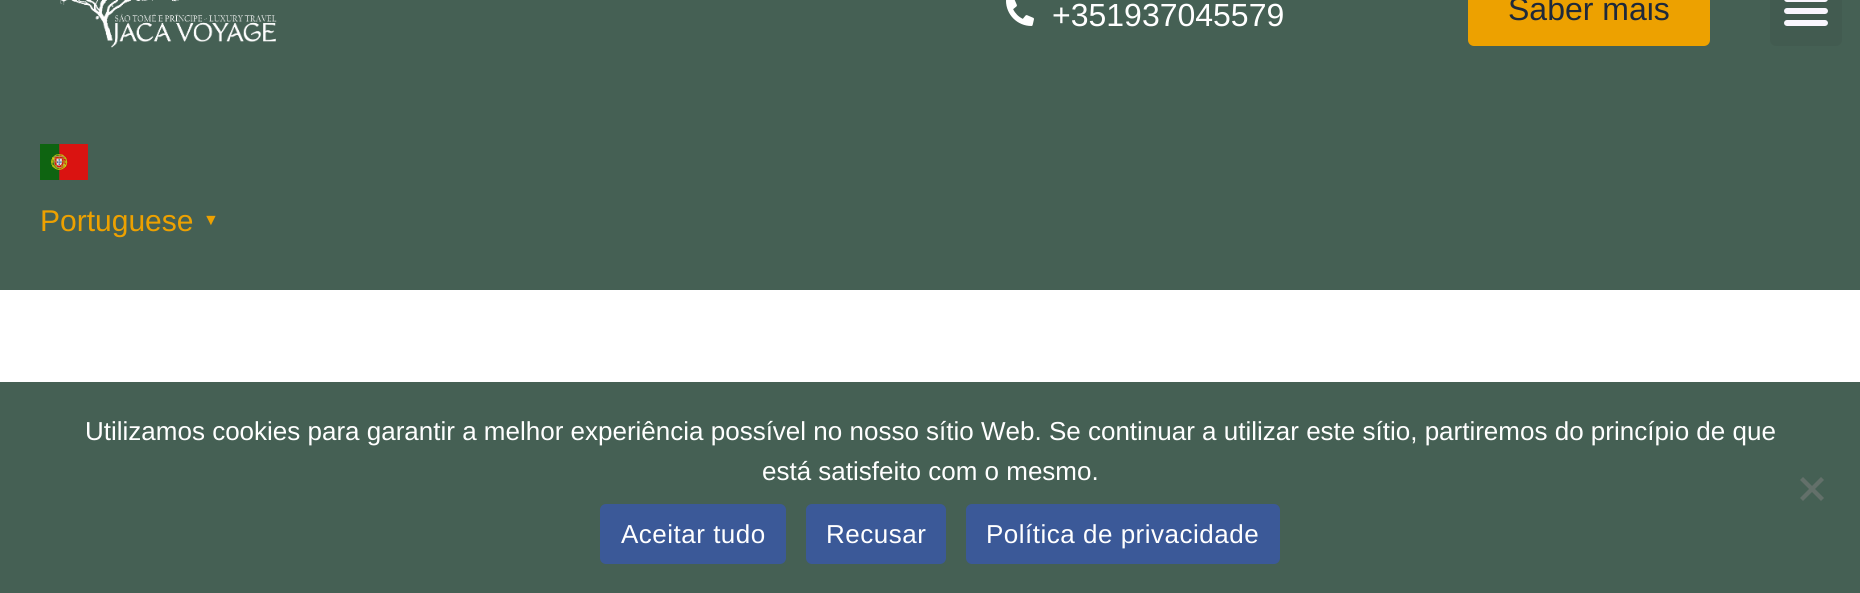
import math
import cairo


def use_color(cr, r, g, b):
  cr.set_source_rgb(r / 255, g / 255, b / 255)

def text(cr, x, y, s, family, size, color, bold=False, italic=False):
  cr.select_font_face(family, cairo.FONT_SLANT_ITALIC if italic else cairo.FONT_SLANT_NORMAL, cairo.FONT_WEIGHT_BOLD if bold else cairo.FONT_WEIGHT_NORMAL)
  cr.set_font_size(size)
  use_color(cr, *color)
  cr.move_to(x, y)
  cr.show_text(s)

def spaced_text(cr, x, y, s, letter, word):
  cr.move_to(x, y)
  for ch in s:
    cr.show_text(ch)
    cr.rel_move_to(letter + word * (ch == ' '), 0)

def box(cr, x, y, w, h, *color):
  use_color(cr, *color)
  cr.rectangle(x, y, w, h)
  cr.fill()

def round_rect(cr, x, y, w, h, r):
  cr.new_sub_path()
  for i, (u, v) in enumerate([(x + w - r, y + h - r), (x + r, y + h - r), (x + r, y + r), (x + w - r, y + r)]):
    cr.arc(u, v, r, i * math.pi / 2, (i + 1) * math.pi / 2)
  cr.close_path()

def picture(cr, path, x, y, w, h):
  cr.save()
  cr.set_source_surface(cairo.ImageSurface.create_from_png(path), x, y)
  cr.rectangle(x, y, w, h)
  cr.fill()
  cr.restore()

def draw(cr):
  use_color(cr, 255, 255, 255)
  cr.paint()
  box(cr, 0, 0, 1860, 290, 69, 96, 84)
  picture(cr, "img_01.png", 60, 0, 217, 48)
  picture(cr, "img_02.png", 1006, 0, 28, 26)
  use_color(cr, 237, 161, 0)
  round_rect(cr, 1468, -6, 242, 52, 6)
  cr.fill()
  use_color(cr, 66, 91, 80)
  round_rect(cr, 1770, -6, 72, 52, 6)
  cr.fill()
  picture(cr, "img_03.png", 1784, 0, 44, 26)
  picture(cr, "img_04.png", 40, 144, 48, 36)
  box(cr, 0, 382, 1860, 211, 69, 96, 84)
  use_color(cr, 99, 112, 106)
  cr.new_path()
  cr.move_to(1821, 477)
  cr.line_to(1824, 480)
  cr.line_to(1803, 501)
  cr.line_to(1800, 498)
  cr.close_path()
  cr.fill()
  cr.new_path()
  cr.move_to(1800, 480)
  cr.line_to(1803, 477)
  cr.line_to(1824, 498)
  cr.line_to(1821, 501)
  cr.close_path()
  cr.fill()
  use_color(cr, 59, 89, 152)
  round_rect(cr, 600, 504, 186, 60, 6)
  cr.fill()
  round_rect(cr, 806, 504, 140, 60, 6)
  cr.fill()
  round_rect(cr, 966, 504, 314, 60, 6)
  cr.fill()
  text(cr, 1052, 26, "+351937045579", "Liberation Sans", 32, (255, 255, 255))
  text(cr, 1508, 20, "Saber mais", "Liberation Sans", 32, (30, 41, 59))
  text(cr, 40, 231, "Portuguese", "Liberation Sans", 30, (237, 161, 0))
  text(cr, 203, 225, "▼", "Liberation Sans", 16, (237, 161, 0), bold=True)
  text(cr, 85, 440, "Utilizamos cookies para garantir a melhor experiência possível no nosso sítio Web. Se continuar a utilizar este sítio, partiremos do princípio de que", "Liberation Sans", 26, (255, 255, 255))
  text(cr, 762, 480, "está satisfeito com o mesmo.", "Liberation Sans", 26, (255, 255, 255))
  spaced_text(cr, 621, 543, "Aceitar tudo", 0.5, 0)
  spaced_text(cr, 826, 543, "Recusar", 0.5, 0)
  spaced_text(cr, 986, 543, "Política de privacidade", 0.5, 0)


surface = cairo.ImageSurface(cairo.FORMAT_RGB24, 1860, 593)
cr = cairo.Context(surface)
options = cairo.FontOptions()
options.set_hint_metrics(cairo.HINT_METRICS_OFF)
options.set_hint_style(cairo.HINT_STYLE_NONE)
cr.set_font_options(options)
cr.set_miter_limit(4)
draw(cr)
surface.write_to_png("out.png")
